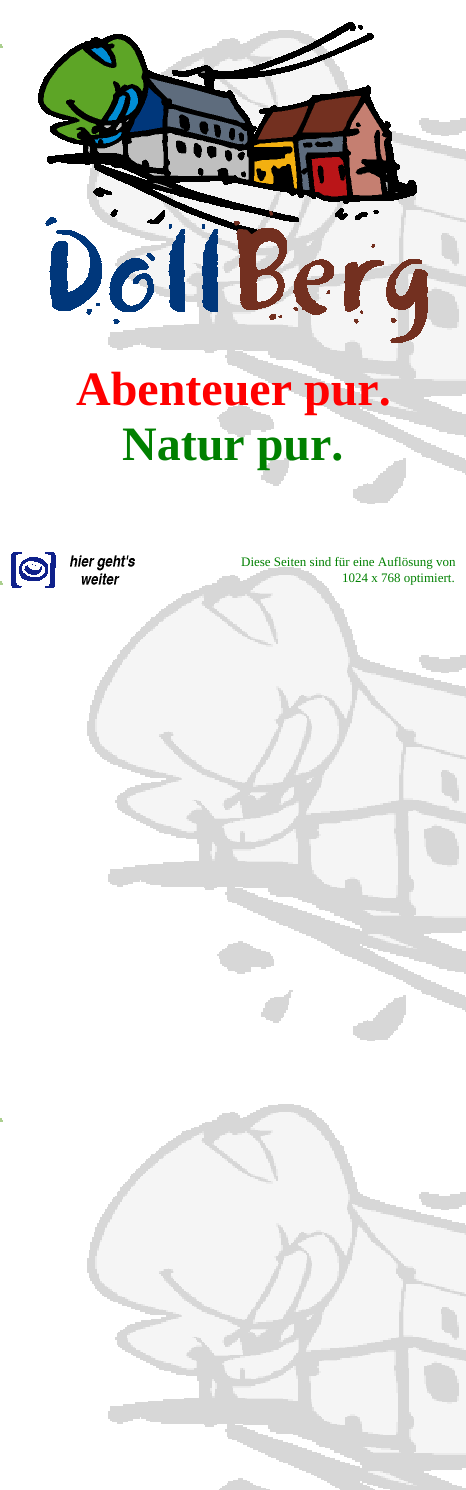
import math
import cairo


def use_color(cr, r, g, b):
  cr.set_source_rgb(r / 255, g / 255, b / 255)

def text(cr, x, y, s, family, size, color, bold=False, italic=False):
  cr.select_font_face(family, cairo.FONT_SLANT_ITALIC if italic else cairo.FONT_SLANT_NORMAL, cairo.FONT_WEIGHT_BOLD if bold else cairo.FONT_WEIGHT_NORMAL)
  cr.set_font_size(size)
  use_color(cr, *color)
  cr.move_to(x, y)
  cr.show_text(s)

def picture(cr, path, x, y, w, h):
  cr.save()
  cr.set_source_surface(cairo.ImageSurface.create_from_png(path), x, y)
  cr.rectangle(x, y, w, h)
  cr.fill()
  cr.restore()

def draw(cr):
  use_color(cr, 255, 255, 255)
  cr.paint()
  picture(cr, "img_01.png", 0, 30, 466, 1460)
  picture(cr, "img_02.png", 38, 22, 390, 321)
  picture(cr, "img_03.png", 11, 552, 124, 36)
  text(cr, 76, 405, "Abenteuer pur.", "Liberation Serif", 48, (255, 0, 0), bold=True)
  text(cr, 122, 460, "Natur pur.", "Liberation Serif", 48, (0, 128, 0), bold=True)
  text(cr, 241, 566, "Diese Seiten sind für eine Auflösung von", "Liberation Serif", 13, (0, 128, 0))
  text(cr, 342, 582, "1024 x 768 optimiert.", "Liberation Serif", 13, (0, 128, 0))


surface = cairo.ImageSurface(cairo.FORMAT_RGB24, 466, 1490)
cr = cairo.Context(surface)
options = cairo.FontOptions()
options.set_hint_metrics(cairo.HINT_METRICS_OFF)
options.set_hint_style(cairo.HINT_STYLE_NONE)
cr.set_font_options(options)
cr.set_miter_limit(4)
draw(cr)
surface.write_to_png("out.png")
